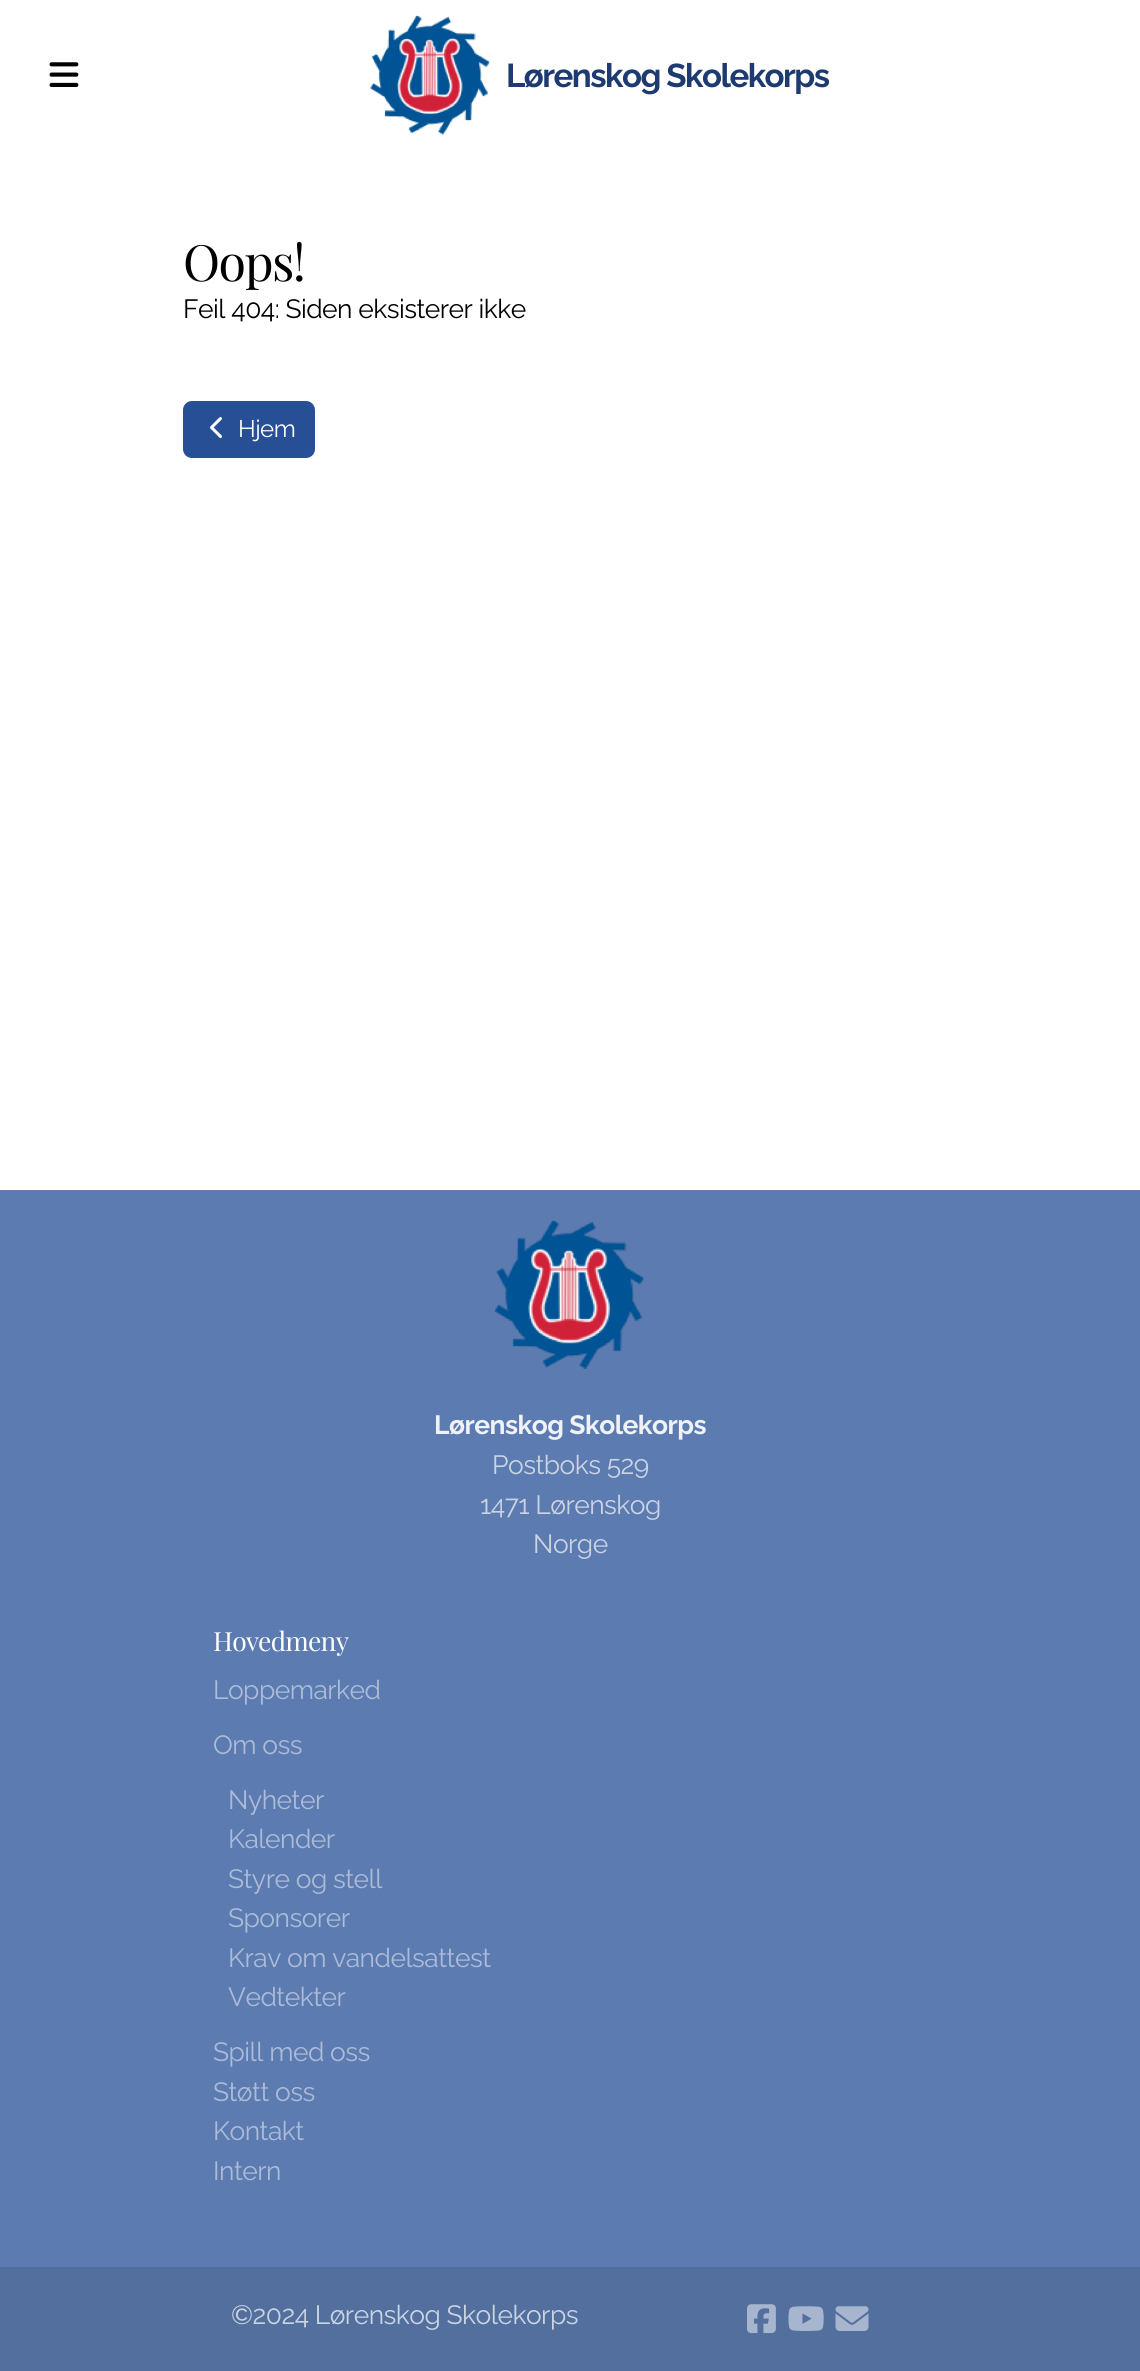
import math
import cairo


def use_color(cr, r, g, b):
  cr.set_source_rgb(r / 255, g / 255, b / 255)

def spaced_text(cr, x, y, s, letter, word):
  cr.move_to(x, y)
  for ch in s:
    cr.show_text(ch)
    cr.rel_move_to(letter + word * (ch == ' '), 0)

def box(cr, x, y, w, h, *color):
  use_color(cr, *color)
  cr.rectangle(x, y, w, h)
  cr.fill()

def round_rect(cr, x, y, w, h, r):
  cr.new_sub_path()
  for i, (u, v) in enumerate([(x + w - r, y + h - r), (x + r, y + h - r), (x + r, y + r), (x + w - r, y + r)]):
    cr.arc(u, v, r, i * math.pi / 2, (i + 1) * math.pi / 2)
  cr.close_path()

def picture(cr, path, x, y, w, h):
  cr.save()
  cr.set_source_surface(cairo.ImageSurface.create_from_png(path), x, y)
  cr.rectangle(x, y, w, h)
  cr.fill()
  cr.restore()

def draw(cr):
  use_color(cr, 255, 255, 255)
  cr.paint()
  picture(cr, "img_01.png", 49, 62, 30, 25)
  picture(cr, "img_02.png", 370, 15, 120, 120)
  use_color(cr, 38, 79, 149)
  round_rect(cr, 184, 402, 130, 55, 8)
  cr.fill_preserve()
  cr.stroke()
  picture(cr, "img_03.png", 210, 417, 12, 21)
  box(cr, 0, 1190, 1140, 1077, 92, 123, 176)
  picture(cr, "img_04.png", 495, 1220, 149, 149)
  box(cr, 0, 2267, 1140, 104, 83, 111, 158)
  picture(cr, "img_05.png", 747, 2304, 29, 30)
  picture(cr, "img_06.png", 788, 2306, 36, 25)
  picture(cr, "img_07.png", 835, 2306, 34, 25)
  cr.select_font_face("Raleway", cairo.FONT_SLANT_NORMAL, cairo.FONT_WEIGHT_BOLD)
  cr.set_font_size(33)
  use_color(cr, 29, 59, 112)
  spaced_text(cr, 506, 87, "Lørenskog Skolekorps", -1.5, 0)
  cr.select_font_face("Playfair Display")
  cr.set_font_size(50)
  use_color(cr, 0, 0, 0)
  spaced_text(cr, 183, 281, "Oops!", -1.5, 0)
  cr.select_font_face("Raleway")
  cr.set_font_size(26.4)
  spaced_text(cr, 183, 318, "Feil 404: Siden eksisterer ikke", -0.5, 0)
  cr.set_font_size(24)
  use_color(cr, 255, 255, 255)
  spaced_text(cr, 238, 437, "Hjem", -0.5, 0)
  cr.select_font_face("Raleway", cairo.FONT_SLANT_NORMAL, cairo.FONT_WEIGHT_BOLD)
  cr.set_font_size(26.4)
  use_color(cr, 239, 242, 247)
  spaced_text(cr, 434, 1434, "Lørenskog Skolekorps", -0.5, 0)
  cr.select_font_face("Raleway")
  use_color(cr, 203, 212, 226)
  spaced_text(cr, 492, 1474, "Postboks 529", -0.5, 0)
  spaced_text(cr, 480, 1514, "1471 Lørenskog", -0.5, 0)
  spaced_text(cr, 533, 1553, "Norge", -0.5, 0)
  cr.select_font_face("Playfair Display")
  use_color(cr, 255, 255, 255)
  spaced_text(cr, 213, 1651, "Hovedmeny", -0.75, 0)
  cr.select_font_face("Raleway")
  use_color(cr, 172, 187, 215)
  spaced_text(cr, 213, 1699, "Loppemarked", -0.5, 0)
  spaced_text(cr, 213, 1754, "Om oss", -0.5, 0)
  spaced_text(cr, 228, 1809, "Nyheter", -0.5, 0)
  spaced_text(cr, 228, 1848, "Kalender", -0.5, 0)
  spaced_text(cr, 228, 1888, "Styre og stell", -0.5, 0)
  spaced_text(cr, 228, 1927, "Sponsorer", -0.5, 0)
  spaced_text(cr, 228, 1967, "Krav om vandelsattest", -0.5, 0)
  spaced_text(cr, 228, 2006, "Vedtekter", -0.5, 0)
  spaced_text(cr, 213, 2061, "Spill med oss", -0.5, 0)
  spaced_text(cr, 213, 2101, "Støtt oss", -0.5, 0)
  spaced_text(cr, 213, 2140, "Kontakt", -0.5, 0)
  spaced_text(cr, 213, 2180, "Intern", -0.5, 0)
  use_color(cr, 203, 212, 226)
  spaced_text(cr, 231, 2324, "©2024 Lørenskog Skolekorps", -0.5, 0)


surface = cairo.ImageSurface(cairo.FORMAT_RGB24, 1140, 2371)
cr = cairo.Context(surface)
options = cairo.FontOptions()
options.set_hint_metrics(cairo.HINT_METRICS_OFF)
options.set_hint_style(cairo.HINT_STYLE_NONE)
cr.set_font_options(options)
cr.set_miter_limit(4)
draw(cr)
surface.write_to_png("out.png")
